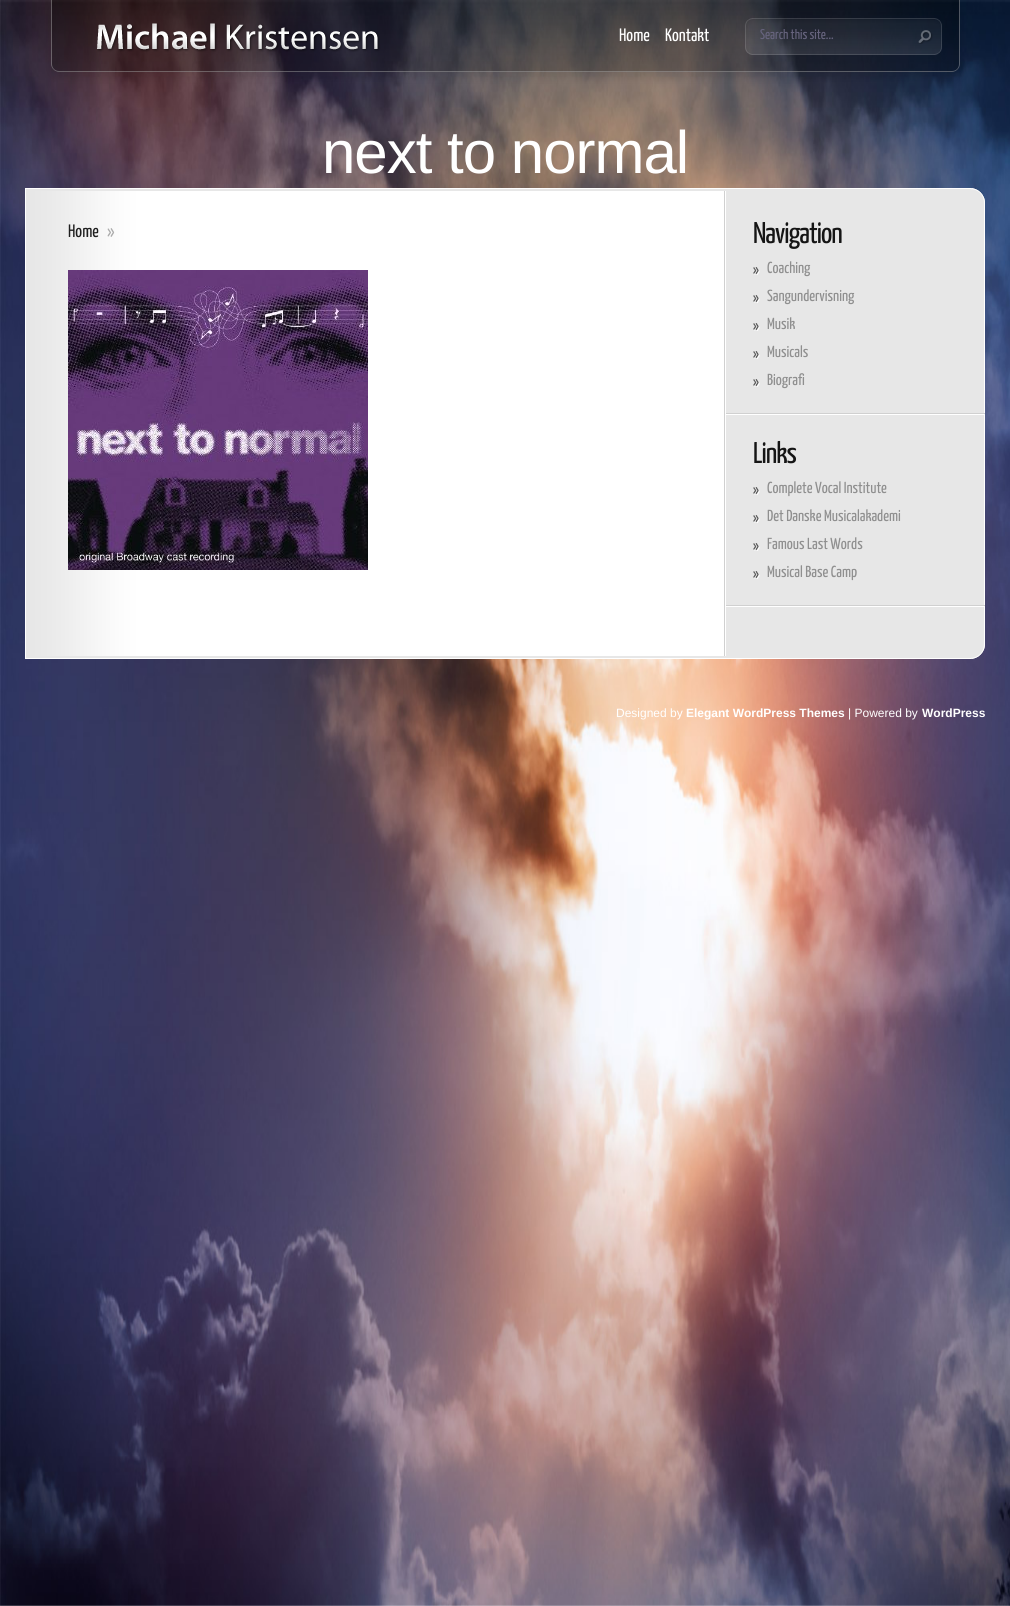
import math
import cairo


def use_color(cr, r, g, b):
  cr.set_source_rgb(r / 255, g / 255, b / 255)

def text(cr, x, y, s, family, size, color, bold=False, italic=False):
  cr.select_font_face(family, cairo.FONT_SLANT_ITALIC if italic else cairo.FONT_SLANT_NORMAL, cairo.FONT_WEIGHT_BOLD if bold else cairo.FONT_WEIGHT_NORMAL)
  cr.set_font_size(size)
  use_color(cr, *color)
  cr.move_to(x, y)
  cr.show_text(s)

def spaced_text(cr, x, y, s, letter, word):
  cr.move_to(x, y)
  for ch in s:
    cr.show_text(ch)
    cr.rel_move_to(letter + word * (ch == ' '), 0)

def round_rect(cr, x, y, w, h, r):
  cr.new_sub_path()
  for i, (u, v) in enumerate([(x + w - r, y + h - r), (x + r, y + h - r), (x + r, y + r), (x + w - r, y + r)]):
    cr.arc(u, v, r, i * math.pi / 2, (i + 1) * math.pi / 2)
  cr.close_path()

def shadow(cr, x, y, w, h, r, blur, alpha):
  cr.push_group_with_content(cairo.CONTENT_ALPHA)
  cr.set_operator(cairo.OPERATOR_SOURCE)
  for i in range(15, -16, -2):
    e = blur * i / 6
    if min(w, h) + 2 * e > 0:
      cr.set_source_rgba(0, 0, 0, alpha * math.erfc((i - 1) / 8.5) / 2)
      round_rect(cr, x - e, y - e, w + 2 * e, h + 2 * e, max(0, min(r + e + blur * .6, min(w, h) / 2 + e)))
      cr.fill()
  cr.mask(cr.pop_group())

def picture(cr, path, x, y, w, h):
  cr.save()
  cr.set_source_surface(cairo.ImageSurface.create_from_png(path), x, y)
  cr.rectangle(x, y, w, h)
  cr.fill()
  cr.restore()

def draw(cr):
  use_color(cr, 255, 255, 255)
  cr.paint()
  picture(cr, "img_01.png", 0, 0, 1010, 1606)
  cr.save()
  cr.set_fill_rule(cairo.FILL_RULE_EVEN_ODD)
  cr.new_path()
  cr.move_to(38, 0)
  cr.line_to(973, 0)
  cr.line_to(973, 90)
  cr.line_to(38, 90)
  cr.close_path()
  cr.move_to(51, 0)
  cr.line_to(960, 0)
  cr.line_to(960, 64)
  cr.curve_to(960, 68.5, 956.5, 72, 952, 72)
  cr.line_to(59, 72)
  cr.curve_to(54.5, 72, 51, 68.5, 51, 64)
  cr.close_path()
  cr.clip()
  use_color(cr, 0, 0, 0)
  shadow(cr, 50, 4, 911, 74, 9, 3.5, 0.1)
  cr.restore()
  picture(cr, "img_02.png", 51, 0, 909, 72)
  cr.set_source_rgba(1, 1, 1, 0.3)
  cr.set_fill_rule(cairo.FILL_RULE_EVEN_ODD)
  cr.new_path()
  cr.move_to(51, 0)
  cr.line_to(960, 0)
  cr.line_to(960, 64)
  cr.curve_to(960, 68, 956, 72, 952, 72)
  cr.line_to(59, 72)
  cr.curve_to(55, 72, 51, 68, 51, 64)
  cr.close_path()
  cr.move_to(52, 0)
  cr.line_to(959, 0)
  cr.line_to(959, 64)
  cr.curve_to(959, 68, 956, 71, 952, 71)
  cr.line_to(59, 71)
  cr.curve_to(55, 71, 52, 68, 52, 64)
  cr.close_path()
  cr.fill()
  picture(cr, "img_03.png", 97, 23, 283, 29)
  picture(cr, "img_04.png", 745, 18, 197, 37)
  picture(cr, "img_05.png", 918, 30, 15, 14)
  picture(cr, "img_06.png", 25, 188, 960, 17)
  picture(cr, "img_07.png", 25, 205, 960, 437)
  picture(cr, "img_08.png", 68, 270, 300, 300)
  picture(cr, "img_09.png", 726, 413, 259, 2)
  picture(cr, "img_10.png", 753, 267, 7, 8)
  picture(cr, "img_10.png", 753, 295, 7, 8)
  picture(cr, "img_10.png", 753, 323, 7, 8)
  picture(cr, "img_10.png", 753, 351, 7, 8)
  picture(cr, "img_10.png", 753, 379, 7, 8)
  picture(cr, "img_09.png", 726, 605, 259, 2)
  picture(cr, "img_10.png", 753, 487, 7, 8)
  picture(cr, "img_10.png", 753, 515, 7, 8)
  picture(cr, "img_10.png", 753, 543, 7, 8)
  picture(cr, "img_10.png", 753, 571, 7, 8)
  picture(cr, "img_11.png", 25, 642, 960, 17)
  text(cr, 619, 41, "Home", "Yanone Kaffeesatz", 18, (255, 255, 255))
  text(cr, 665, 41, "Kontakt", "Yanone Kaffeesatz", 18, (255, 255, 255))
  cr.save()
  cr.set_fill_rule(cairo.FILL_RULE_WINDING)
  cr.rectangle(760, 29, 149, 14)
  cr.clip()
  text(cr, 760, 39, "Search this site...", "Yanone Kaffeesatz", 14, (103, 100, 126))
  cr.restore()
  cr.select_font_face("Liberation Sans")
  cr.set_font_size(60)
  spaced_text(cr, 322, 173, "next to normal", -1, 0)
  text(cr, 68, 237, "Home", "Yanone Kaffeesatz", 18, (31, 31, 31))
  text(cr, 107, 237, "»", "Yanone Kaffeesatz", 18, (172, 172, 172))
  cr.set_font_size(30)
  use_color(cr, 21, 21, 21)
  spaced_text(cr, 753, 243, "Navigation", -1, 0)
  text(cr, 767, 273, "Coaching", "Yanone Kaffeesatz", 16, (143, 143, 143))
  text(cr, 767, 301, "Sangundervisning", "Yanone Kaffeesatz", 16, (143, 143, 143))
  text(cr, 767, 329, "Musik", "Yanone Kaffeesatz", 16, (143, 143, 143))
  text(cr, 767, 357, "Musicals", "Yanone Kaffeesatz", 16, (143, 143, 143))
  text(cr, 767, 385, "Biografi", "Yanone Kaffeesatz", 16, (143, 143, 143))
  cr.set_font_size(30)
  use_color(cr, 21, 21, 21)
  spaced_text(cr, 753, 463, "Links", -1, 0)
  text(cr, 767, 493, "Complete Vocal Institute", "Yanone Kaffeesatz", 16, (143, 143, 143))
  text(cr, 767, 521, "Det Danske Musicalakademi", "Yanone Kaffeesatz", 16, (143, 143, 143))
  text(cr, 767, 549, "Famous Last Words", "Yanone Kaffeesatz", 16, (143, 143, 143))
  text(cr, 767, 577, "Musical Base Camp", "Yanone Kaffeesatz", 16, (143, 143, 143))
  text(cr, 616, 717, "Designed by", "Liberation Sans", 12, (255, 255, 255))
  text(cr, 686, 717, "Elegant WordPress Themes", "Liberation Sans", 12, (255, 255, 255), bold=True)
  text(cr, 848, 717, "| Powered by", "Liberation Sans", 12, (255, 255, 255))
  text(cr, 922, 717, "WordPress", "Liberation Sans", 12, (255, 255, 255), bold=True)


surface = cairo.ImageSurface(cairo.FORMAT_RGB24, 1010, 1606)
cr = cairo.Context(surface)
options = cairo.FontOptions()
options.set_hint_metrics(cairo.HINT_METRICS_OFF)
options.set_hint_style(cairo.HINT_STYLE_NONE)
cr.set_font_options(options)
cr.set_miter_limit(4)
draw(cr)
surface.write_to_png("out.png")
